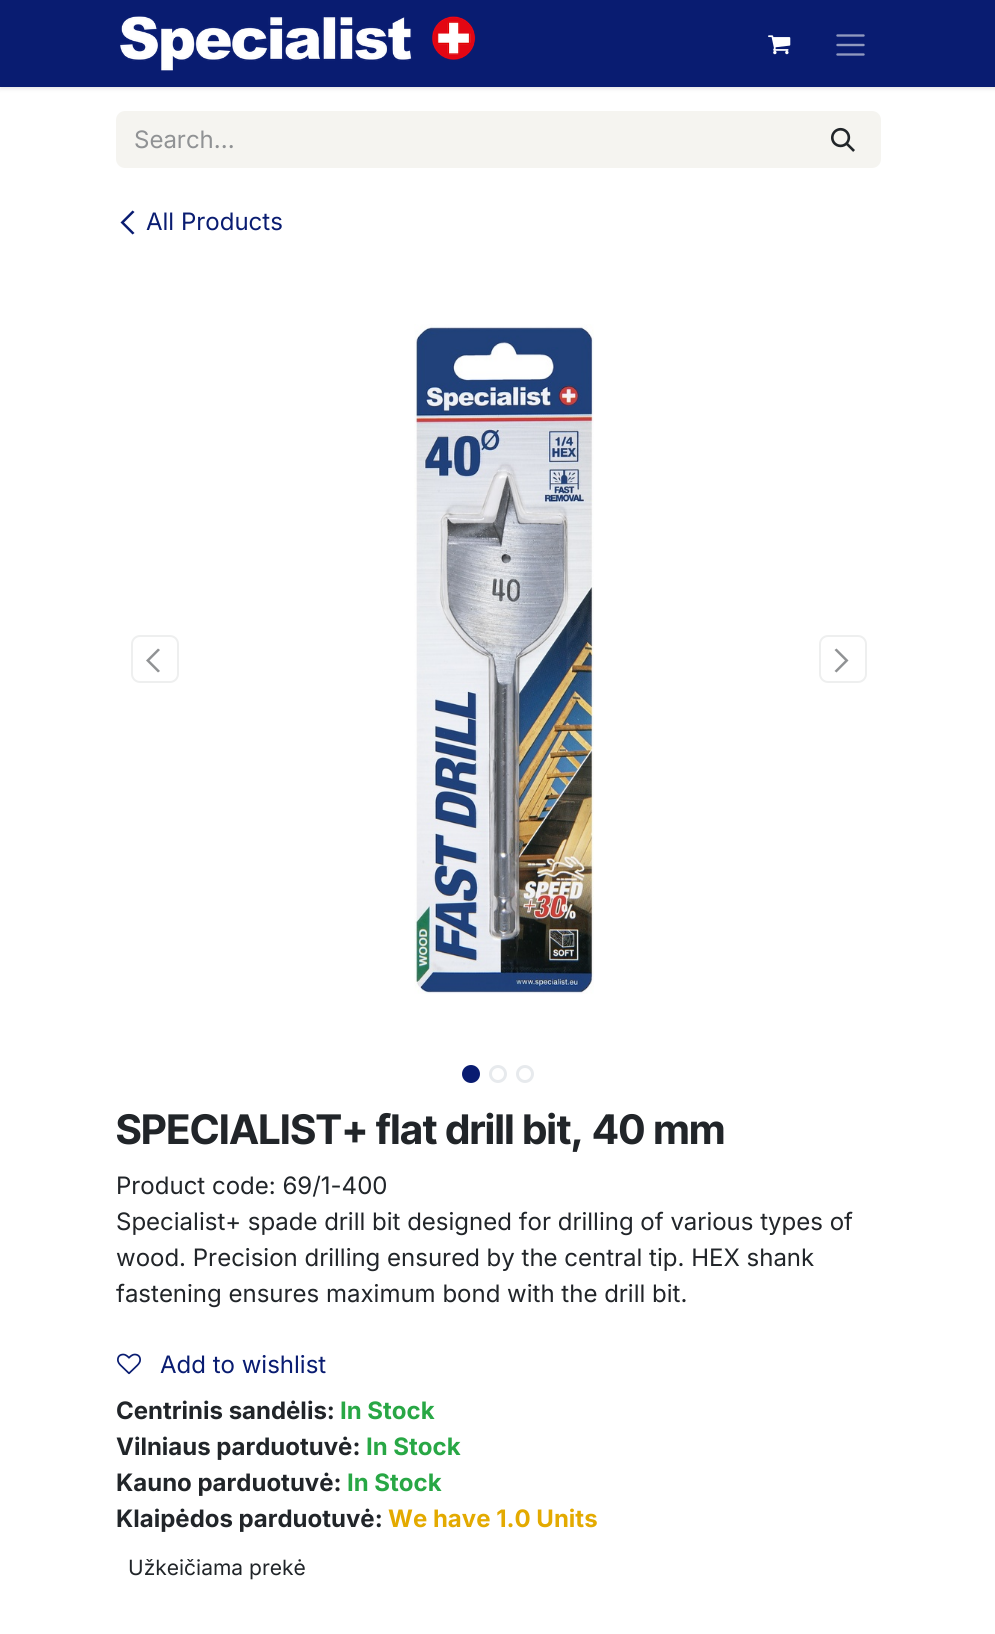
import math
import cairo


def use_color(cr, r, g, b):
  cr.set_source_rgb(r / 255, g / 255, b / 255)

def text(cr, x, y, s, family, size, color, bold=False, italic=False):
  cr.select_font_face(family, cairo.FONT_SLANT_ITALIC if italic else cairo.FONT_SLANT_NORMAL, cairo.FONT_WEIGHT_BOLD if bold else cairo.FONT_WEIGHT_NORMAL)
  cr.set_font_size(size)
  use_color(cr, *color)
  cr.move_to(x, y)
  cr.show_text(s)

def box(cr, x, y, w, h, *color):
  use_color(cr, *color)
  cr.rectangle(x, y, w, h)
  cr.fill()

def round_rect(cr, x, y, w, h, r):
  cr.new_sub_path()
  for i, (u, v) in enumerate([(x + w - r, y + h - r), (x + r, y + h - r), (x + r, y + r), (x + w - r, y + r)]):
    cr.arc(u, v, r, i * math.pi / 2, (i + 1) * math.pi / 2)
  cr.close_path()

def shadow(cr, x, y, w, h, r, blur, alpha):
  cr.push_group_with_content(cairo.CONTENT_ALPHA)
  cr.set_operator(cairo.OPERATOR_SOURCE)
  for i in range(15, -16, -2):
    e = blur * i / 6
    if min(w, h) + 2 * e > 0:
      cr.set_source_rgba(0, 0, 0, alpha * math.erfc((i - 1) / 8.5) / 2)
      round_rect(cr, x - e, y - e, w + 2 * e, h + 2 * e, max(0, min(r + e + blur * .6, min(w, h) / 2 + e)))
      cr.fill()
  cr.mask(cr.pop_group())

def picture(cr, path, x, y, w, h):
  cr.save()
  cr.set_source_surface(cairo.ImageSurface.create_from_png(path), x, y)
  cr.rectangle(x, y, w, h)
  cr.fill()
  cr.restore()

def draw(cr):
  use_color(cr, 255, 255, 255)
  cr.paint()
  use_color(cr, 0, 0, 0)
  shadow(cr, 0, 2, 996, 87, 0, 2, 0.1)
  box(cr, 0, 0, 995, 87, 9, 28, 113)
  picture(cr, "img_01.png", 120, 16, 356, 55)
  picture(cr, "img_02.png", 768, 35, 23, 20)
  cr.new_path()
  cr.move_to(837.5, 35.5)
  cr.line_to(863.5, 35.5)
  cr.move_to(837.5, 45)
  cr.line_to(863.5, 45)
  cr.move_to(837.5, 54.5)
  cr.line_to(863.5, 54.5)
  use_color(cr, 144, 153, 191)
  cr.set_line_width(2.4)
  cr.set_line_cap(cairo.LINE_CAP_ROUND)
  cr.stroke()
  use_color(cr, 245, 244, 240)
  cr.new_path()
  cr.move_to(125, 111)
  cr.line_to(807, 111)
  cr.line_to(807, 168)
  cr.line_to(125, 168)
  cr.curve_to(120, 168, 116, 164, 116, 159)
  cr.line_to(116, 120)
  cr.curve_to(116, 115, 120, 111, 125, 111)
  cr.close_path()
  cr.fill()
  cr.new_path()
  cr.move_to(807, 112)
  cr.line_to(872, 112)
  cr.curve_to(876.5, 112, 880, 115.5, 880, 120)
  cr.line_to(880, 159)
  cr.curve_to(880, 163.5, 876.5, 167, 872, 167)
  cr.line_to(807, 167)
  cr.close_path()
  cr.fill_preserve()
  cr.set_line_width(2)
  cr.set_line_cap(cairo.LINE_CAP_BUTT)
  cr.stroke()
  picture(cr, "img_03.png", 831, 127, 24, 25)
  use_color(cr, 9, 28, 113)
  cr.new_path()
  cr.move_to(120.5, 222.5)
  cr.line_to(132.5, 210.5)
  cr.line_to(134.5, 212)
  cr.line_to(124, 222.5)
  cr.line_to(134.5, 233)
  cr.line_to(132.5, 234.5)
  cr.close_path()
  cr.fill()
  round_rect(cr, 132, 636, 46, 46, 8)
  use_color(cr, 238, 239, 239)
  cr.stroke()
  use_color(cr, 144, 146, 148)
  cr.new_path()
  cr.move_to(146, 660.5)
  cr.line_to(158, 648.5)
  cr.line_to(160, 650)
  cr.line_to(149.5, 660.5)
  cr.line_to(160, 671)
  cr.line_to(158, 672.5)
  cr.close_path()
  cr.fill()
  picture(cr, "img_04.png", 414, 324, 180, 670)
  round_rect(cr, 820, 636, 46, 46, 8)
  use_color(cr, 238, 239, 239)
  cr.stroke()
  use_color(cr, 144, 146, 148)
  cr.new_path()
  cr.move_to(848.5, 660.5)
  cr.line_to(836.5, 672.5)
  cr.line_to(834.5, 671)
  cr.line_to(845, 660.5)
  cr.line_to(834.5, 650)
  cr.line_to(836.5, 648.5)
  cr.close_path()
  cr.fill()
  use_color(cr, 9, 28, 113)
  cr.arc(471, 1074, 7.5, 0, 2 * math.pi)
  cr.fill_preserve()
  cr.set_line_width(3)
  cr.stroke()
  cr.arc(498, 1074, 7.5, 0, 2 * math.pi)
  use_color(cr, 231, 234, 237)
  cr.stroke()
  cr.arc(525, 1074, 7.5, 0, 2 * math.pi)
  cr.stroke()
  picture(cr, "img_05.png", 117, 1353, 24, 22)
  text(cr, 134, 148, "Search...", "Inter", 24, (144, 146, 148))
  text(cr, 146, 230, "All Products", "Inter", 24, (9, 28, 113))
  text(cr, 116, 1144, "SPECIALIST+ flat drill bit, 40 mm", "Inter Tight", 40.75, (33, 37, 41), bold=True)
  text(cr, 116, 1194, "Product code: 69/1-400", "Inter", 24, (33, 37, 41))
  text(cr, 116, 1230, "Specialist+ spade drill bit designed for drilling of various types of", "Inter", 24, (33, 37, 41))
  text(cr, 116, 1266, "wood. Precision drilling ensured by the central tip. HEX shank", "Inter", 24, (33, 37, 41))
  text(cr, 116, 1302, "fastening ensures maximum bond with the drill bit.", "Inter", 24, (33, 37, 41))
  text(cr, 160, 1373, "Add to wishlist", "Inter", 24, (9, 28, 113))
  text(cr, 116, 1419, "Centrinis sandėlis:", "Inter", 24, (33, 37, 41), bold=True)
  text(cr, 340, 1419, "In Stock", "Inter", 24, (40, 167, 69), bold=True)
  text(cr, 116, 1455, "Vilniaus parduotuvė:", "Inter", 24, (33, 37, 41), bold=True)
  text(cr, 366, 1455, "In Stock", "Inter", 24, (40, 167, 69), bold=True)
  text(cr, 116, 1491, "Kauno parduotuvė:", "Inter", 24, (33, 37, 41), bold=True)
  text(cr, 347, 1491, "In Stock", "Inter", 24, (40, 167, 69), bold=True)
  text(cr, 116, 1527, "Klaipėdos parduotuvė:", "Inter", 24, (33, 37, 41), bold=True)
  text(cr, 388, 1527, "We have 1.0 Units", "Inter", 24, (227, 170, 0), bold=True)
  text(cr, 128, 1575, "Užkeičiama prekė", "Inter", 21, (33, 37, 41))


surface = cairo.ImageSurface(cairo.FORMAT_RGB24, 995, 1634)
cr = cairo.Context(surface)
options = cairo.FontOptions()
options.set_hint_metrics(cairo.HINT_METRICS_OFF)
options.set_hint_style(cairo.HINT_STYLE_NONE)
cr.set_font_options(options)
cr.set_miter_limit(4)
draw(cr)
surface.write_to_png("out.png")
